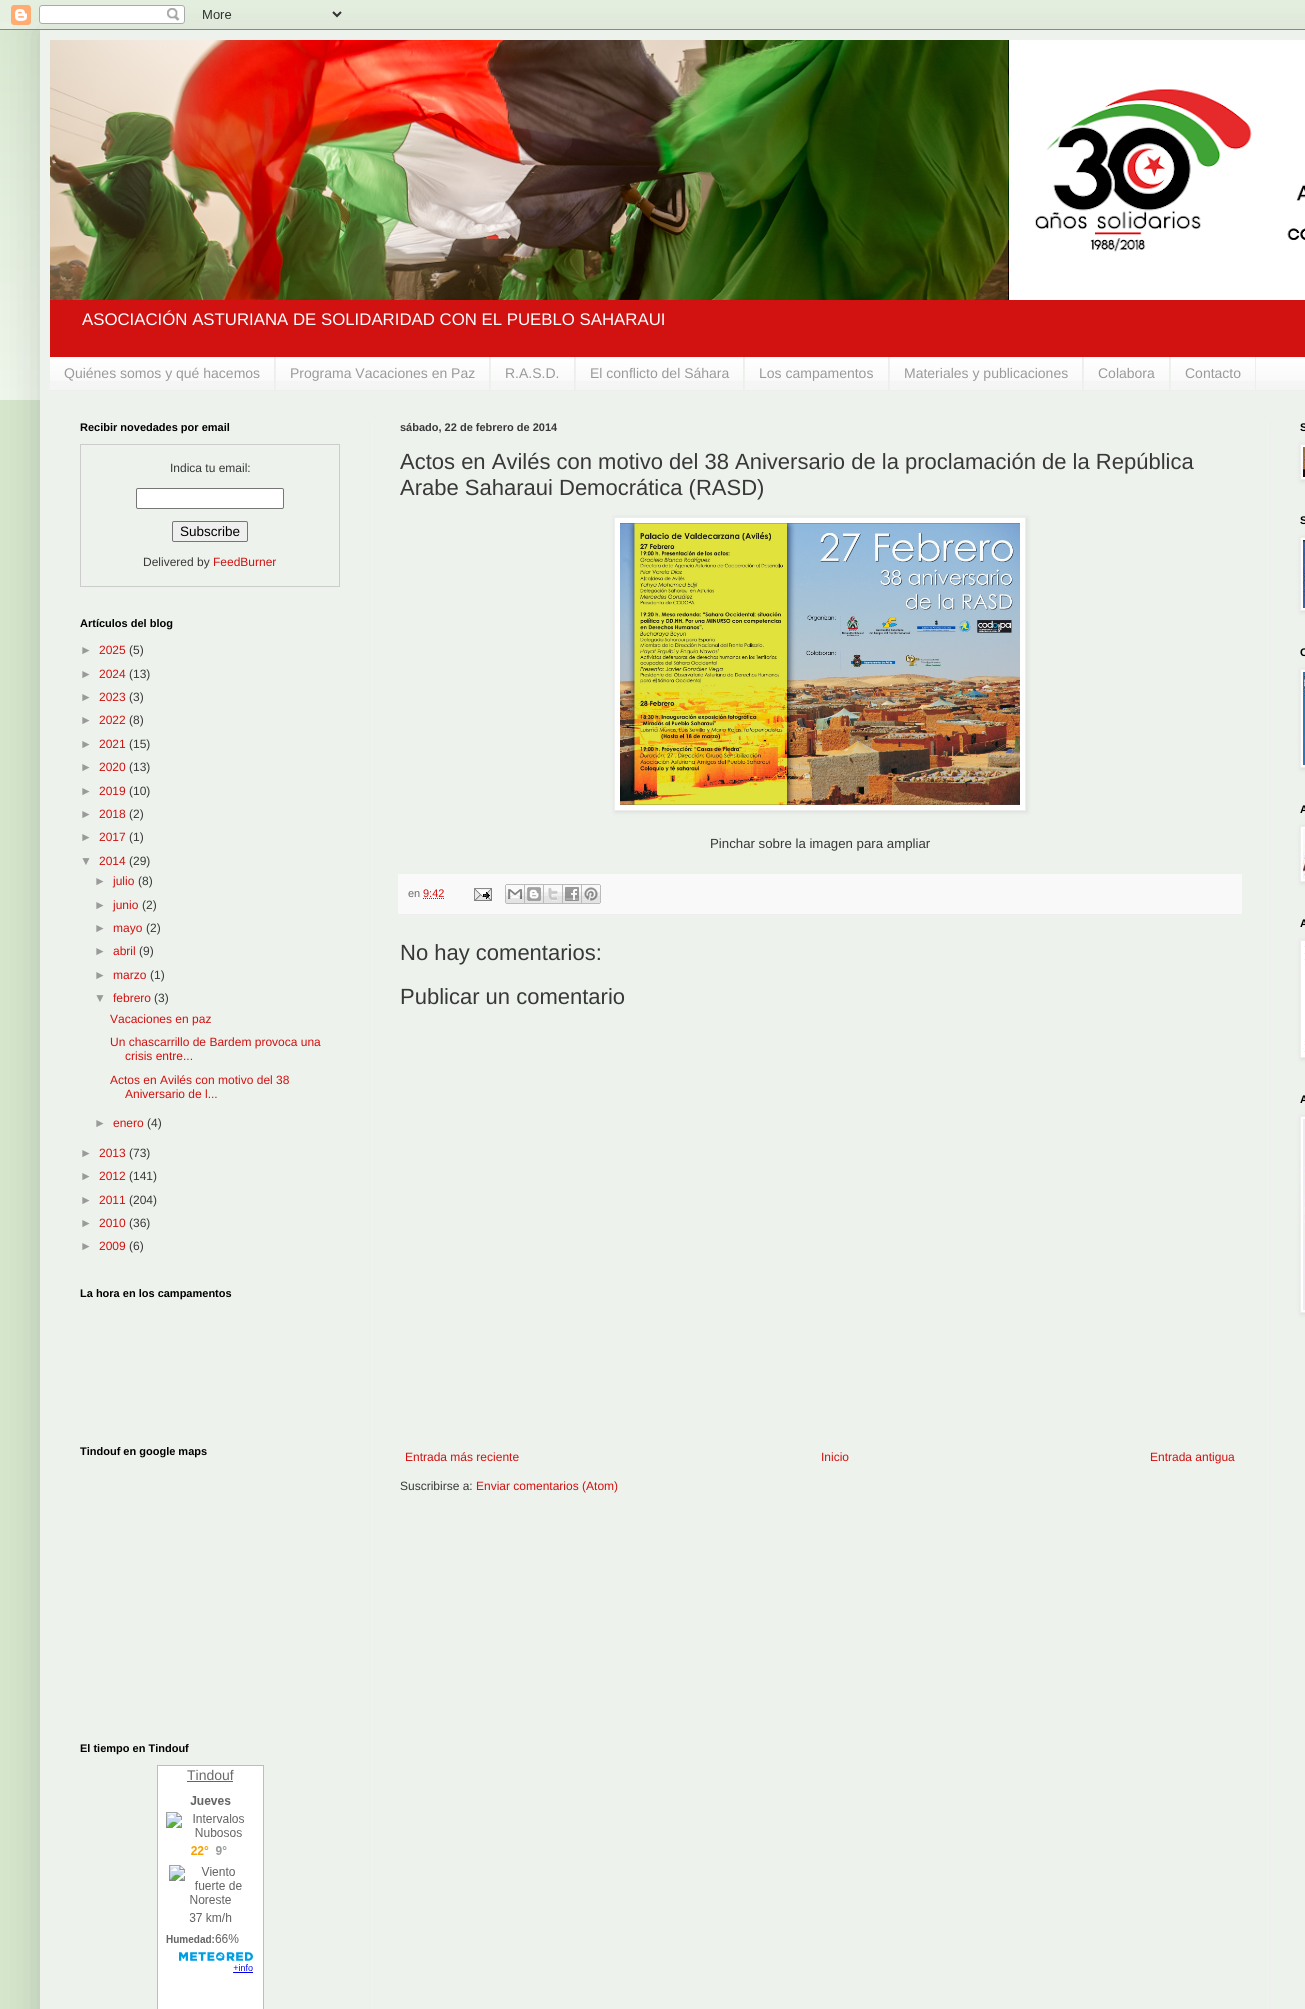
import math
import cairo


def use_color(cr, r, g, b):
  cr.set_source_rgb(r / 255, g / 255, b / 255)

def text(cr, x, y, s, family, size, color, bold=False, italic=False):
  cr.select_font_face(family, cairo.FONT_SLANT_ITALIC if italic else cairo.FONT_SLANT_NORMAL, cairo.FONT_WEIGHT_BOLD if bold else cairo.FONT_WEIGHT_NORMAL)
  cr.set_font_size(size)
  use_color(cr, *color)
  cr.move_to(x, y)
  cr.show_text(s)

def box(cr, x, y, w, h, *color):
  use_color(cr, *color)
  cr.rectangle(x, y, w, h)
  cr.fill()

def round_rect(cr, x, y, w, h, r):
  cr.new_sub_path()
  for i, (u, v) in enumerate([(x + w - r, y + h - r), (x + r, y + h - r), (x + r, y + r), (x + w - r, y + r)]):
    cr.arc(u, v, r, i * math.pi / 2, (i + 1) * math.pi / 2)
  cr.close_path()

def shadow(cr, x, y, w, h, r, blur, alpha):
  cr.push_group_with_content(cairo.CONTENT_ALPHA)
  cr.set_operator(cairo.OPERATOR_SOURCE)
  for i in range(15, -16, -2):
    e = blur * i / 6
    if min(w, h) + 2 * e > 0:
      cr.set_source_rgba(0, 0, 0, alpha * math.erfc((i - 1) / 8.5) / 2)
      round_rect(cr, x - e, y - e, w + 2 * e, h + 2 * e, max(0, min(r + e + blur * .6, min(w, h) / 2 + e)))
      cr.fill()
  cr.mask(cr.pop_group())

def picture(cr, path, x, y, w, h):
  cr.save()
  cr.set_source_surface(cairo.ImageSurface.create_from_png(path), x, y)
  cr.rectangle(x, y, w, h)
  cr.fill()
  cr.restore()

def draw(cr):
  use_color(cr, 213, 230, 204)
  cr.paint()
  picture(cr, "img_02.png", 0, 21, 1305, 379)
  use_color(cr, 0, 0, 0)
  shadow(cr, 40, 30, 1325, 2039, 0, 20, 0.15)
  picture(cr, "img_01.png", 0, 0, 1305, 30)
  box(cr, 40, 30, 1265, 1979, 237, 242, 236)
  box(cr, 50, 300, 1255, 57, 210, 17, 17)
  picture(cr, "img_03.png", 50, 40, 1255, 260)
  box(cr, 50, 358, 1255, 32, 245, 245, 245)
  picture(cr, "img_04.png", 50, 357, 1255, 24)
  box(cr, 50, 390, 1255, 1, 238, 238, 238)
  box(cr, 274, 357, 1, 33, 238, 238, 238)
  box(cr, 489, 357, 1, 33, 238, 238, 238)
  box(cr, 275, 357, 1, 33, 237, 242, 236)
  box(cr, 574, 357, 1, 33, 238, 238, 238)
  box(cr, 490, 357, 1, 33, 237, 242, 236)
  box(cr, 743, 357, 1, 33, 238, 238, 238)
  box(cr, 575, 357, 1, 33, 237, 242, 236)
  box(cr, 888, 357, 1, 33, 238, 238, 238)
  box(cr, 744, 357, 1, 33, 237, 242, 236)
  box(cr, 1082, 357, 1, 33, 238, 238, 238)
  box(cr, 889, 357, 1, 33, 237, 242, 236)
  box(cr, 1169, 357, 1, 33, 238, 238, 238)
  box(cr, 1083, 357, 1, 33, 237, 242, 236)
  box(cr, 1255, 357, 1, 33, 238, 238, 238)
  box(cr, 1170, 357, 1, 33, 237, 242, 236)
  box(cr, 369, 421, 1, 1588, 238, 238, 238)
  box(cr, 1270, 421, 1, 1588, 238, 238, 238)
  cr.rectangle(80.5, 444.5, 259, 142)
  use_color(cr, 204, 204, 204)
  cr.set_line_width(1)
  cr.stroke()
  use_color(cr, 255, 255, 255)
  round_rect(cr, 136.5, 488.5, 147, 20, 1.5)
  cr.fill_preserve()
  use_color(cr, 118, 118, 118)
  cr.stroke()
  use_color(cr, 239, 239, 239)
  round_rect(cr, 172.5, 521.5, 75, 20, 1.5)
  cr.fill_preserve()
  use_color(cr, 118, 118, 118)
  cr.stroke()
  use_color(cr, 255, 255, 255)
  cr.rectangle(157.5, 1765.5, 106, 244)
  cr.fill_preserve()
  use_color(cr, 189, 189, 189)
  cr.stroke()
  box(cr, 187, 1781, 46, 1, 101, 101, 101)
  picture(cr, "img_05.png", 166, 1796, 87, 177)
  use_color(cr, 0, 0, 0)
  shadow(cr, 615, 518, 412, 294, 0, 2.5, 0.1)
  use_color(cr, 255, 255, 255)
  cr.rectangle(614.5, 517.5, 411, 293)
  cr.fill_preserve()
  use_color(cr, 238, 238, 238)
  cr.stroke()
  picture(cr, "img_06.png", 620, 523, 400, 282)
  box(cr, 398, 874, 844, 40, 249, 249, 249)
  box(cr, 398, 914, 844, 1, 238, 238, 238)
  cr.new_path()
  cr.move_to(423, 898.5)
  cr.line_to(444, 898.5)
  use_color(cr, 210, 17, 17)
  cr.set_dash([1, 1])
  cr.stroke()
  picture(cr, "img_07.png", 474, 888, 18, 13)
  picture(cr, "img_08.png", 505, 884, 20, 20)
  picture(cr, "img_09.png", 525, 884, 19, 20)
  picture(cr, "img_10.png", 544, 884, 19, 20)
  picture(cr, "img_11.png", 563, 884, 19, 20)
  picture(cr, "img_12.png", 582, 884, 19, 20)
  use_color(cr, 0, 0, 0)
  shadow(cr, 1301, 445, 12, 36, 0, 2.5, 0.1)
  use_color(cr, 255, 255, 255)
  cr.rectangle(1300.5, 444.5, 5, 35)
  cr.fill_preserve()
  use_color(cr, 238, 238, 238)
  cr.set_dash([])
  cr.stroke()
  picture(cr, "img_13.png", 1303, 447, 2, 30)
  use_color(cr, 0, 0, 0)
  shadow(cr, 1301, 538, 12, 74, 0, 2.5, 0.1)
  use_color(cr, 255, 255, 255)
  cr.rectangle(1300.5, 537.5, 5, 73)
  cr.fill_preserve()
  use_color(cr, 238, 238, 238)
  cr.stroke()
  picture(cr, "img_14.png", 1303, 540, 2, 68)
  use_color(cr, 0, 0, 0)
  shadow(cr, 1301, 670, 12, 99, 0, 2.5, 0.1)
  use_color(cr, 255, 255, 255)
  cr.rectangle(1300.5, 669.5, 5, 98)
  cr.fill_preserve()
  use_color(cr, 238, 238, 238)
  cr.stroke()
  picture(cr, "img_15.png", 1303, 672, 2, 93)
  use_color(cr, 0, 0, 0)
  shadow(cr, 1301, 827, 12, 56, 0, 2.5, 0.1)
  use_color(cr, 255, 255, 255)
  cr.rectangle(1300.5, 826.5, 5, 55)
  cr.fill_preserve()
  use_color(cr, 238, 238, 238)
  cr.stroke()
  picture(cr, "img_16.png", 1303, 829, 2, 50)
  use_color(cr, 0, 0, 0)
  shadow(cr, 1301, 941, 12, 118, 0, 2.5, 0.1)
  use_color(cr, 255, 255, 255)
  cr.rectangle(1300.5, 940.5, 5, 117)
  cr.fill_preserve()
  use_color(cr, 238, 238, 238)
  cr.stroke()
  picture(cr, "img_17.png", 1303, 944, 2, 109)
  use_color(cr, 0, 0, 0)
  shadow(cr, 1301, 1117, 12, 197, 0, 2.5, 0.1)
  use_color(cr, 255, 255, 255)
  cr.rectangle(1300.5, 1116.5, 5, 196)
  cr.fill_preserve()
  use_color(cr, 238, 238, 238)
  cr.stroke()
  picture(cr, "img_18.png", 1303, 1119, 2, 191)
  text(cr, 82, 325, "ASOCIACIÓN ASTURIANA DE SOLIDARIDAD CON EL PUEBLO SAHARAUI", "Liberation Sans", 16.8, (255, 255, 255))
  text(cr, 64, 378, "Quiénes somos y qué hacemos", "Liberation Sans", 14, (154, 154, 154))
  text(cr, 290, 378, "Programa Vacaciones en Paz", "Liberation Sans", 14, (154, 154, 154))
  text(cr, 505, 378, "R.A.S.D.", "Liberation Sans", 14, (154, 154, 154))
  text(cr, 590, 378, "El conflicto del Sáhara", "Liberation Sans", 14, (154, 154, 154))
  text(cr, 759, 378, "Los campamentos", "Liberation Sans", 14, (154, 154, 154))
  text(cr, 904, 378, "Materiales y publicaciones", "Liberation Sans", 14, (154, 154, 154))
  text(cr, 1098, 378, "Colabora", "Liberation Sans", 14, (154, 154, 154))
  text(cr, 1185, 378, "Contacto", "Liberation Sans", 14, (154, 154, 154))
  text(cr, 80, 431, "Recibir novedades por email", "Liberation Sans", 11, (0, 0, 0), bold=True)
  text(cr, 170, 472, "Indica tu email:", "Liberation Sans", 12, (56, 56, 56))
  text(cr, 180, 536, "Subscribe", "Liberation Sans", 13.5, (0, 0, 0))
  text(cr, 143, 566, "Delivered by", "Liberation Sans", 12, (56, 56, 56))
  text(cr, 213, 566, "FeedBurner", "Liberation Sans", 12, (210, 17, 17))
  text(cr, 80, 627, "Artículos del blog", "Liberation Sans", 11, (0, 0, 0), bold=True)
  text(cr, 80, 654, "►", "Liberation Sans", 12, (154, 154, 154))
  text(cr, 99, 654, "2025", "Liberation Sans", 12, (210, 17, 17))
  text(cr, 129, 654, "(5)", "Liberation Sans", 12, (56, 56, 56))
  text(cr, 80, 678, "►", "Liberation Sans", 12, (154, 154, 154))
  text(cr, 99, 678, "2024", "Liberation Sans", 12, (210, 17, 17))
  text(cr, 129, 678, "(13)", "Liberation Sans", 12, (56, 56, 56))
  text(cr, 80, 701, "►", "Liberation Sans", 12, (154, 154, 154))
  text(cr, 99, 701, "2023", "Liberation Sans", 12, (210, 17, 17))
  text(cr, 129, 701, "(3)", "Liberation Sans", 12, (56, 56, 56))
  text(cr, 80, 724, "►", "Liberation Sans", 12, (154, 154, 154))
  text(cr, 99, 724, "2022", "Liberation Sans", 12, (210, 17, 17))
  text(cr, 129, 724, "(8)", "Liberation Sans", 12, (56, 56, 56))
  text(cr, 80, 748, "►", "Liberation Sans", 12, (154, 154, 154))
  text(cr, 99, 748, "2021", "Liberation Sans", 12, (210, 17, 17))
  text(cr, 129, 748, "(15)", "Liberation Sans", 12, (56, 56, 56))
  text(cr, 80, 771, "►", "Liberation Sans", 12, (154, 154, 154))
  text(cr, 99, 771, "2020", "Liberation Sans", 12, (210, 17, 17))
  text(cr, 129, 771, "(13)", "Liberation Sans", 12, (56, 56, 56))
  text(cr, 80, 795, "►", "Liberation Sans", 12, (154, 154, 154))
  text(cr, 99, 795, "2019", "Liberation Sans", 12, (210, 17, 17))
  text(cr, 129, 795, "(10)", "Liberation Sans", 12, (56, 56, 56))
  text(cr, 80, 818, "►", "Liberation Sans", 12, (154, 154, 154))
  text(cr, 99, 818, "2018", "Liberation Sans", 12, (210, 17, 17))
  text(cr, 129, 818, "(2)", "Liberation Sans", 12, (56, 56, 56))
  text(cr, 80, 841, "►", "Liberation Sans", 12, (154, 154, 154))
  text(cr, 99, 841, "2017", "Liberation Sans", 12, (210, 17, 17))
  text(cr, 129, 841, "(1)", "Liberation Sans", 12, (56, 56, 56))
  text(cr, 80, 865, "▼", "Liberation Sans", 12, (154, 154, 154))
  text(cr, 99, 865, "2014", "Liberation Sans", 12, (210, 17, 17))
  text(cr, 129, 865, "(29)", "Liberation Sans", 12, (56, 56, 56))
  text(cr, 94, 885, "►", "Liberation Sans", 12, (154, 154, 154))
  text(cr, 113, 885, "julio", "Liberation Sans", 12, (210, 17, 17))
  text(cr, 138, 885, "(8)", "Liberation Sans", 12, (56, 56, 56))
  text(cr, 94, 909, "►", "Liberation Sans", 12, (154, 154, 154))
  text(cr, 113, 909, "junio", "Liberation Sans", 12, (210, 17, 17))
  text(cr, 142, 909, "(2)", "Liberation Sans", 12, (56, 56, 56))
  text(cr, 94, 932, "►", "Liberation Sans", 12, (154, 154, 154))
  text(cr, 113, 932, "mayo", "Liberation Sans", 12, (210, 17, 17))
  text(cr, 146, 932, "(2)", "Liberation Sans", 12, (56, 56, 56))
  text(cr, 94, 955, "►", "Liberation Sans", 12, (154, 154, 154))
  text(cr, 113, 955, "abril", "Liberation Sans", 12, (210, 17, 17))
  text(cr, 139, 955, "(9)", "Liberation Sans", 12, (56, 56, 56))
  text(cr, 94, 979, "►", "Liberation Sans", 12, (154, 154, 154))
  text(cr, 113, 979, "marzo", "Liberation Sans", 12, (210, 17, 17))
  text(cr, 150, 979, "(1)", "Liberation Sans", 12, (56, 56, 56))
  text(cr, 94, 1002, "▼", "Liberation Sans", 12, (154, 154, 154))
  text(cr, 113, 1002, "febrero", "Liberation Sans", 12, (210, 17, 17))
  text(cr, 154, 1002, "(3)", "Liberation Sans", 12, (56, 56, 56))
  text(cr, 110, 1023, "Vacaciones en paz", "Liberation Sans", 12, (210, 17, 17))
  text(cr, 110, 1046, "Un chascarrillo de Bardem provoca una", "Liberation Sans", 12, (210, 17, 17))
  text(cr, 125, 1060, "crisis entre...", "Liberation Sans", 12, (210, 17, 17))
  text(cr, 110, 1084, "Actos en Avilés con motivo del 38", "Liberation Sans", 12, (210, 17, 17))
  text(cr, 125, 1098, "Aniversario de l...", "Liberation Sans", 12, (210, 17, 17))
  text(cr, 94, 1127, "►", "Liberation Sans", 12, (154, 154, 154))
  text(cr, 113, 1127, "enero", "Liberation Sans", 12, (210, 17, 17))
  text(cr, 147, 1127, "(4)", "Liberation Sans", 12, (56, 56, 56))
  text(cr, 80, 1157, "►", "Liberation Sans", 12, (154, 154, 154))
  text(cr, 99, 1157, "2013", "Liberation Sans", 12, (210, 17, 17))
  text(cr, 129, 1157, "(73)", "Liberation Sans", 12, (56, 56, 56))
  text(cr, 80, 1180, "►", "Liberation Sans", 12, (154, 154, 154))
  text(cr, 99, 1180, "2012", "Liberation Sans", 12, (210, 17, 17))
  text(cr, 129, 1180, "(141)", "Liberation Sans", 12, (56, 56, 56))
  text(cr, 80, 1204, "►", "Liberation Sans", 12, (154, 154, 154))
  text(cr, 99, 1204, "2011", "Liberation Sans", 12, (210, 17, 17))
  text(cr, 129, 1204, "(204)", "Liberation Sans", 12, (56, 56, 56))
  text(cr, 80, 1227, "►", "Liberation Sans", 12, (154, 154, 154))
  text(cr, 99, 1227, "2010", "Liberation Sans", 12, (210, 17, 17))
  text(cr, 129, 1227, "(36)", "Liberation Sans", 12, (56, 56, 56))
  text(cr, 80, 1250, "►", "Liberation Sans", 12, (154, 154, 154))
  text(cr, 99, 1250, "2009", "Liberation Sans", 12, (210, 17, 17))
  text(cr, 129, 1250, "(6)", "Liberation Sans", 12, (56, 56, 56))
  text(cr, 80, 1297, "La hora en los campamentos", "Liberation Sans", 11, (0, 0, 0), bold=True)
  text(cr, 80, 1455, "Tindouf en google maps", "Liberation Sans", 11, (0, 0, 0), bold=True)
  text(cr, 80, 1752, "El tiempo en Tindouf", "Liberation Sans", 11, (0, 0, 0), bold=True)
  text(cr, 187, 1780, "Tindouf", "Liberation Sans", 14, (106, 106, 106))
  text(cr, 400, 431, "sábado, 22 de febrero de 2014", "Liberation Sans", 11, (56, 56, 56), bold=True)
  text(cr, 400, 469, "Actos en Avilés con motivo del 38 Aniversario de la proclamación de la República", "Liberation Sans", 22, (56, 56, 56))
  text(cr, 400, 495, "Arabe Saharaui Democrática (RASD)", "Liberation Sans", 22, (56, 56, 56))
  text(cr, 710, 848, "Pinchar sobre la imagen para ampliar", "Liberation Sans", 13.25, (56, 56, 56))
  text(cr, 408, 897, "en", "Liberation Sans", 11, (106, 106, 106))
  text(cr, 423, 897, "9:42", "Liberation Sans", 11, (210, 17, 17))
  text(cr, 400, 960, "No hay comentarios:", "Liberation Sans", 22, (56, 56, 56))
  text(cr, 400, 1004, "Publicar un comentario", "Liberation Sans", 22, (56, 56, 56))
  text(cr, 405, 1461, "Entrada más reciente", "Liberation Sans", 12, (210, 17, 17))
  text(cr, 821, 1461, "Inicio", "Liberation Sans", 12, (210, 17, 17))
  text(cr, 1150, 1461, "Entrada antigua", "Liberation Sans", 12, (210, 17, 17))
  text(cr, 400, 1490, "Suscribirse a:", "Liberation Sans", 12, (56, 56, 56))
  text(cr, 476, 1490, "Enviar comentarios (Atom)", "Liberation Sans", 12, (210, 17, 17))
  text(cr, 1300, 431, "S", "Liberation Sans", 11, (0, 0, 0), bold=True)
  text(cr, 1300, 524, "S", "Liberation Sans", 11, (0, 0, 0), bold=True)
  text(cr, 1300, 656, "C", "Liberation Sans", 11, (0, 0, 0), bold=True)
  text(cr, 1300, 813, "A", "Liberation Sans", 11, (0, 0, 0), bold=True)
  text(cr, 1300, 927, "A", "Liberation Sans", 11, (0, 0, 0), bold=True)
  text(cr, 1300, 1103, "A", "Liberation Sans", 11, (0, 0, 0), bold=True)


surface = cairo.ImageSurface(cairo.FORMAT_RGB24, 1305, 2009)
cr = cairo.Context(surface)
options = cairo.FontOptions()
options.set_hint_metrics(cairo.HINT_METRICS_OFF)
options.set_hint_style(cairo.HINT_STYLE_NONE)
cr.set_font_options(options)
cr.set_miter_limit(4)
draw(cr)
surface.write_to_png("out.png")
